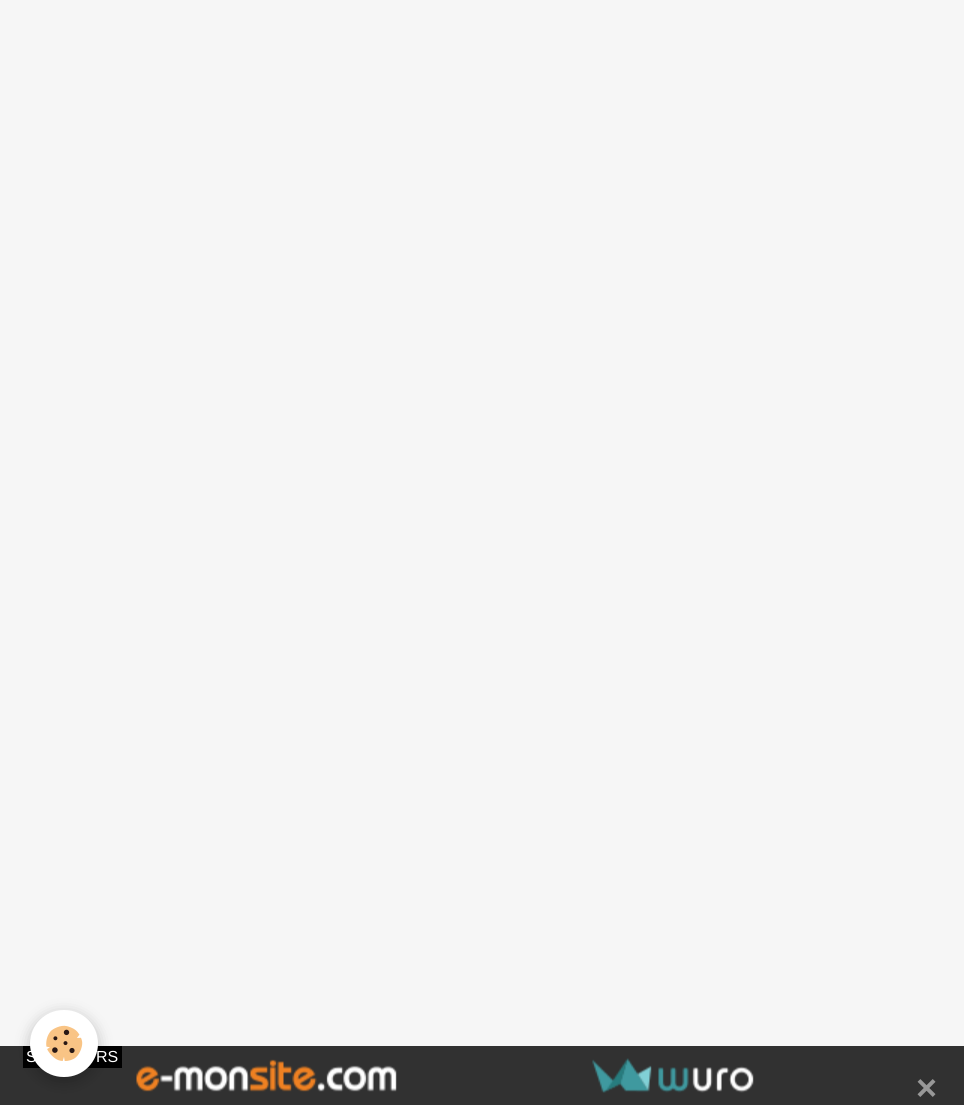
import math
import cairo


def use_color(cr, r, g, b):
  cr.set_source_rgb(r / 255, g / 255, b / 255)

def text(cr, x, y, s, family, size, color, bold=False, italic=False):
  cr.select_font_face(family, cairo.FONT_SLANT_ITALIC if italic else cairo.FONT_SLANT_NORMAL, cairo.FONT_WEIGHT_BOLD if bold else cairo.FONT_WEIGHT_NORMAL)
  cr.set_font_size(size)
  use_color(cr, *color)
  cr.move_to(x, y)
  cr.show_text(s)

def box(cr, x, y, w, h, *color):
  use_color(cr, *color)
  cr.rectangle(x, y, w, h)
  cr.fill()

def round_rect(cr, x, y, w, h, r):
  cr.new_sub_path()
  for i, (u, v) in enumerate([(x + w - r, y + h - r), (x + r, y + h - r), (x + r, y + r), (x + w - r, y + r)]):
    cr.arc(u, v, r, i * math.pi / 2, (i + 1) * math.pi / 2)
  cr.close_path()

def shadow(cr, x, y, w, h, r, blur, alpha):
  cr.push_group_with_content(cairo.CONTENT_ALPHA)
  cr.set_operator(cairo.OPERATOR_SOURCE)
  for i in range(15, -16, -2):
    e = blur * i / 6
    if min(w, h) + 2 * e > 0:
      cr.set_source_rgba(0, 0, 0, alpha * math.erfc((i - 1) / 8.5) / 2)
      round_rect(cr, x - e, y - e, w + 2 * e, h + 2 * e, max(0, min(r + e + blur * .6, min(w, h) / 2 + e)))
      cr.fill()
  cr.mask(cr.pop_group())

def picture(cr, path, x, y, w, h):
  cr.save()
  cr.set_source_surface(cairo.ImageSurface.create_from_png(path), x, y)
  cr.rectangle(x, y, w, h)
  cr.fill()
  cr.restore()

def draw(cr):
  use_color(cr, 246, 246, 246)
  cr.paint()
  box(cr, 0, 1046, 964, 59, 49, 49, 49)
  box(cr, 23, 1046, 99, 22, 0, 0, 0)
  use_color(cr, 0, 0, 0)
  shadow(cr, 30, 1014, 68, 68, 34, 7.5, 0.24)
  use_color(cr, 255, 255, 255)
  round_rect(cr, 30, 1010, 68, 67, 33.5)
  cr.fill()
  picture(cr, "img_01.png", 46, 1025, 37, 36)
  picture(cr, "img_02.png", 136, 1059, 261, 33)
  picture(cr, "img_03.png", 592, 1058, 162, 35)
  text(cr, 26, 1062, "S", "Liberation Sans", 16, (255, 255, 255))
  text(cr, 96, 1062, "RS", "Liberation Sans", 16, (255, 255, 255))
  text(cr, 916, 1100, "×", "Liberation Sans", 36, (152, 152, 152), bold=True)


surface = cairo.ImageSurface(cairo.FORMAT_RGB24, 964, 1105)
cr = cairo.Context(surface)
options = cairo.FontOptions()
options.set_hint_metrics(cairo.HINT_METRICS_OFF)
options.set_hint_style(cairo.HINT_STYLE_NONE)
cr.set_font_options(options)
cr.set_miter_limit(4)
draw(cr)
surface.write_to_png("out.png")
